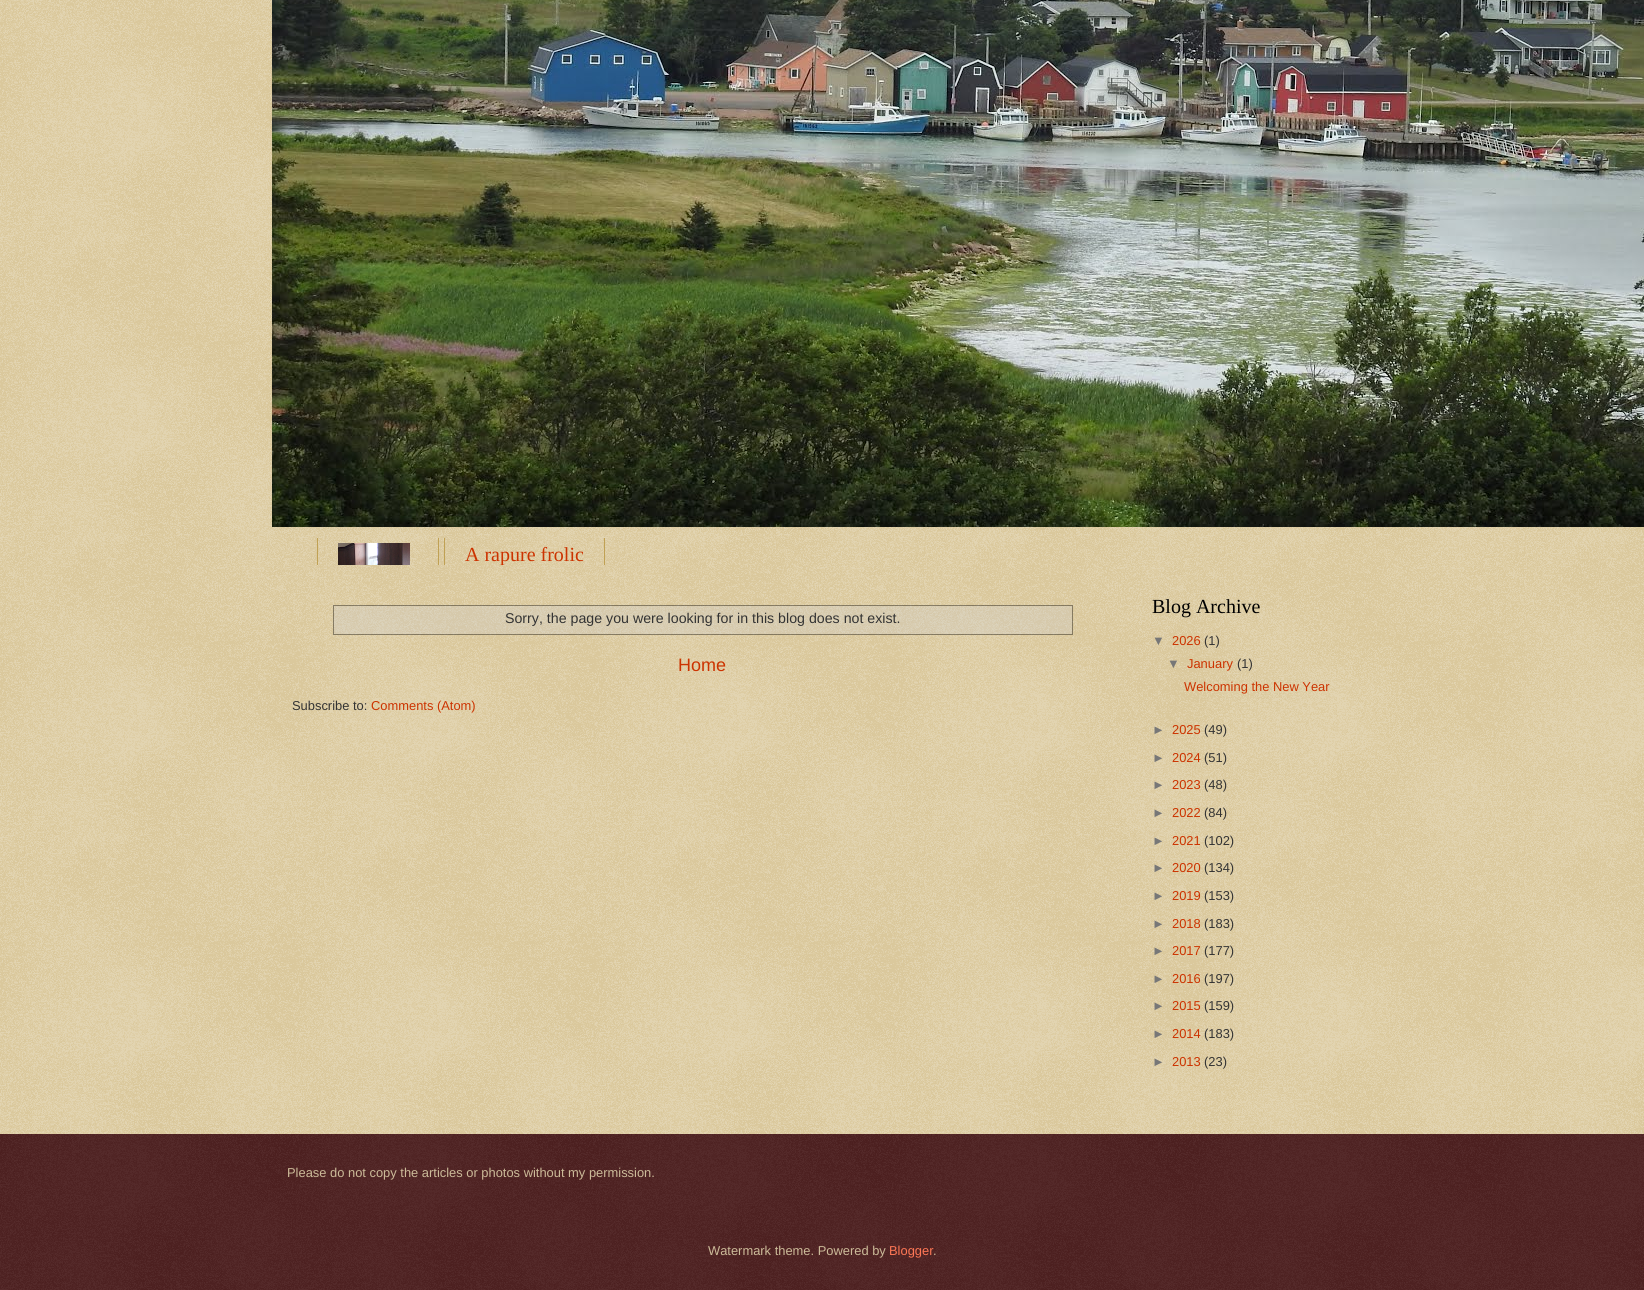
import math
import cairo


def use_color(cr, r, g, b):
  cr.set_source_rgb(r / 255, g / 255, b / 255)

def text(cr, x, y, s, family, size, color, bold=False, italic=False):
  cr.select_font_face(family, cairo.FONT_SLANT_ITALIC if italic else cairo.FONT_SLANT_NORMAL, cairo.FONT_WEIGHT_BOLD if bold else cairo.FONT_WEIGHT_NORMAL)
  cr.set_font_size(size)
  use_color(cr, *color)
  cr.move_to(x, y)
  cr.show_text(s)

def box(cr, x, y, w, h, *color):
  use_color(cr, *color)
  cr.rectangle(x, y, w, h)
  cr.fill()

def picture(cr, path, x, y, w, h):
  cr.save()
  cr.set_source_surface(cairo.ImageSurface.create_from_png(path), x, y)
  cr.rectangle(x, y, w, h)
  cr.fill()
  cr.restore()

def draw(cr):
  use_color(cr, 192, 161, 84)
  cr.paint()
  picture(cr, "img_01.png", 0, 0, 1644, 1134)
  picture(cr, "img_02.png", 272, 0, 1372, 527)
  box(cr, 438, 538, 1, 27, 192, 161, 84)
  box(cr, 317, 538, 1, 27, 192, 161, 84)
  picture(cr, "img_03.png", 338, 543, 72, 22)
  box(cr, 604, 538, 1, 27, 192, 161, 84)
  box(cr, 444, 538, 1, 27, 192, 161, 84)
  cr.rectangle(333.5, 605.5, 739, 29)
  cr.set_source_rgba(0, 0, 0, 0.4)
  cr.set_line_width(1)
  cr.stroke()
  cr.set_source_rgba(0.8, 0.8, 0.8, 0.32)
  cr.rectangle(334, 606, 738, 28)
  cr.fill()
  box(cr, 0, 1134, 1644, 156, 51, 0, 0)
  picture(cr, "img_04.png", 0, 1134, 1644, 156)
  cr.save()
  cr.rectangle(292, 527, 1060, 38)
  cr.clip()
  text(cr, 465, 561, "A rapure frolic", "Liberation Serif", 20, (204, 51, 0))
  cr.restore()
  text(cr, 505, 623, "Sorry, the page you were looking for in this blog does not exist.", "Liberation Sans", 14.2, (51, 51, 51))
  text(cr, 678, 671, "Home", "Liberation Sans", 18, (204, 51, 0))
  text(cr, 292, 710, "Subscribe to:", "Liberation Sans", 12.9, (51, 51, 51))
  text(cr, 371, 710, "Comments (Atom)", "Liberation Sans", 12.9, (204, 51, 0))
  text(cr, 1152, 613, "Blog Archive", "Liberation Serif", 20, (0, 0, 0))
  text(cr, 1152, 645, "▼", "Liberation Sans", 12.9, (119, 119, 119))
  text(cr, 1172, 645, "2026", "Liberation Sans", 12.9, (204, 51, 0))
  text(cr, 1204, 645, "(1)", "Liberation Sans", 12.9, (51, 51, 51))
  text(cr, 1167, 668, "▼", "Liberation Sans", 12.9, (119, 119, 119))
  text(cr, 1187, 668, "January", "Liberation Sans", 12.9, (204, 51, 0))
  text(cr, 1237, 668, "(1)", "Liberation Sans", 12.9, (51, 51, 51))
  text(cr, 1184, 691, "Welcoming the New Year", "Liberation Sans", 12.9, (204, 51, 0))
  text(cr, 1152, 734, "►", "Liberation Sans", 12.9, (119, 119, 119))
  text(cr, 1172, 734, "2025", "Liberation Sans", 12.9, (204, 51, 0))
  text(cr, 1204, 734, "(49)", "Liberation Sans", 12.9, (51, 51, 51))
  text(cr, 1152, 762, "►", "Liberation Sans", 12.9, (119, 119, 119))
  text(cr, 1172, 762, "2024", "Liberation Sans", 12.9, (204, 51, 0))
  text(cr, 1204, 762, "(51)", "Liberation Sans", 12.9, (51, 51, 51))
  text(cr, 1152, 789, "►", "Liberation Sans", 12.9, (119, 119, 119))
  text(cr, 1172, 789, "2023", "Liberation Sans", 12.9, (204, 51, 0))
  text(cr, 1204, 789, "(48)", "Liberation Sans", 12.9, (51, 51, 51))
  text(cr, 1152, 817, "►", "Liberation Sans", 12.9, (119, 119, 119))
  text(cr, 1172, 817, "2022", "Liberation Sans", 12.9, (204, 51, 0))
  text(cr, 1204, 817, "(84)", "Liberation Sans", 12.9, (51, 51, 51))
  text(cr, 1152, 845, "►", "Liberation Sans", 12.9, (119, 119, 119))
  text(cr, 1172, 845, "2021", "Liberation Sans", 12.9, (204, 51, 0))
  text(cr, 1204, 845, "(102)", "Liberation Sans", 12.9, (51, 51, 51))
  text(cr, 1152, 872, "►", "Liberation Sans", 12.9, (119, 119, 119))
  text(cr, 1172, 872, "2020", "Liberation Sans", 12.9, (204, 51, 0))
  text(cr, 1204, 872, "(134)", "Liberation Sans", 12.9, (51, 51, 51))
  text(cr, 1152, 900, "►", "Liberation Sans", 12.9, (119, 119, 119))
  text(cr, 1172, 900, "2019", "Liberation Sans", 12.9, (204, 51, 0))
  text(cr, 1204, 900, "(153)", "Liberation Sans", 12.9, (51, 51, 51))
  text(cr, 1152, 928, "►", "Liberation Sans", 12.9, (119, 119, 119))
  text(cr, 1172, 928, "2018", "Liberation Sans", 12.9, (204, 51, 0))
  text(cr, 1204, 928, "(183)", "Liberation Sans", 12.9, (51, 51, 51))
  text(cr, 1152, 955, "►", "Liberation Sans", 12.9, (119, 119, 119))
  text(cr, 1172, 955, "2017", "Liberation Sans", 12.9, (204, 51, 0))
  text(cr, 1204, 955, "(177)", "Liberation Sans", 12.9, (51, 51, 51))
  text(cr, 1152, 983, "►", "Liberation Sans", 12.9, (119, 119, 119))
  text(cr, 1172, 983, "2016", "Liberation Sans", 12.9, (204, 51, 0))
  text(cr, 1204, 983, "(197)", "Liberation Sans", 12.9, (51, 51, 51))
  text(cr, 1152, 1010, "►", "Liberation Sans", 12.9, (119, 119, 119))
  text(cr, 1172, 1010, "2015", "Liberation Sans", 12.9, (204, 51, 0))
  text(cr, 1204, 1010, "(159)", "Liberation Sans", 12.9, (51, 51, 51))
  text(cr, 1152, 1038, "►", "Liberation Sans", 12.9, (119, 119, 119))
  text(cr, 1172, 1038, "2014", "Liberation Sans", 12.9, (204, 51, 0))
  text(cr, 1204, 1038, "(183)", "Liberation Sans", 12.9, (51, 51, 51))
  text(cr, 1152, 1066, "►", "Liberation Sans", 12.9, (119, 119, 119))
  text(cr, 1172, 1066, "2013", "Liberation Sans", 12.9, (204, 51, 0))
  text(cr, 1204, 1066, "(23)", "Liberation Sans", 12.9, (51, 51, 51))
  text(cr, 287, 1177, "Please do not copy the articles or photos without my permission.", "Liberation Sans", 12.9, (204, 187, 153))
  text(cr, 708, 1255, "Watermark theme. Powered by", "Liberation Sans", 12.9, (204, 187, 153))
  text(cr, 889, 1255, "Blogger", "Liberation Sans", 12.9, (255, 119, 85))
  text(cr, 933, 1255, ".", "Liberation Sans", 12.9, (204, 187, 153))


surface = cairo.ImageSurface(cairo.FORMAT_RGB24, 1644, 1290)
cr = cairo.Context(surface)
options = cairo.FontOptions()
options.set_hint_metrics(cairo.HINT_METRICS_OFF)
options.set_hint_style(cairo.HINT_STYLE_NONE)
cr.set_font_options(options)
cr.set_miter_limit(4)
draw(cr)
surface.write_to_png("out.png")
